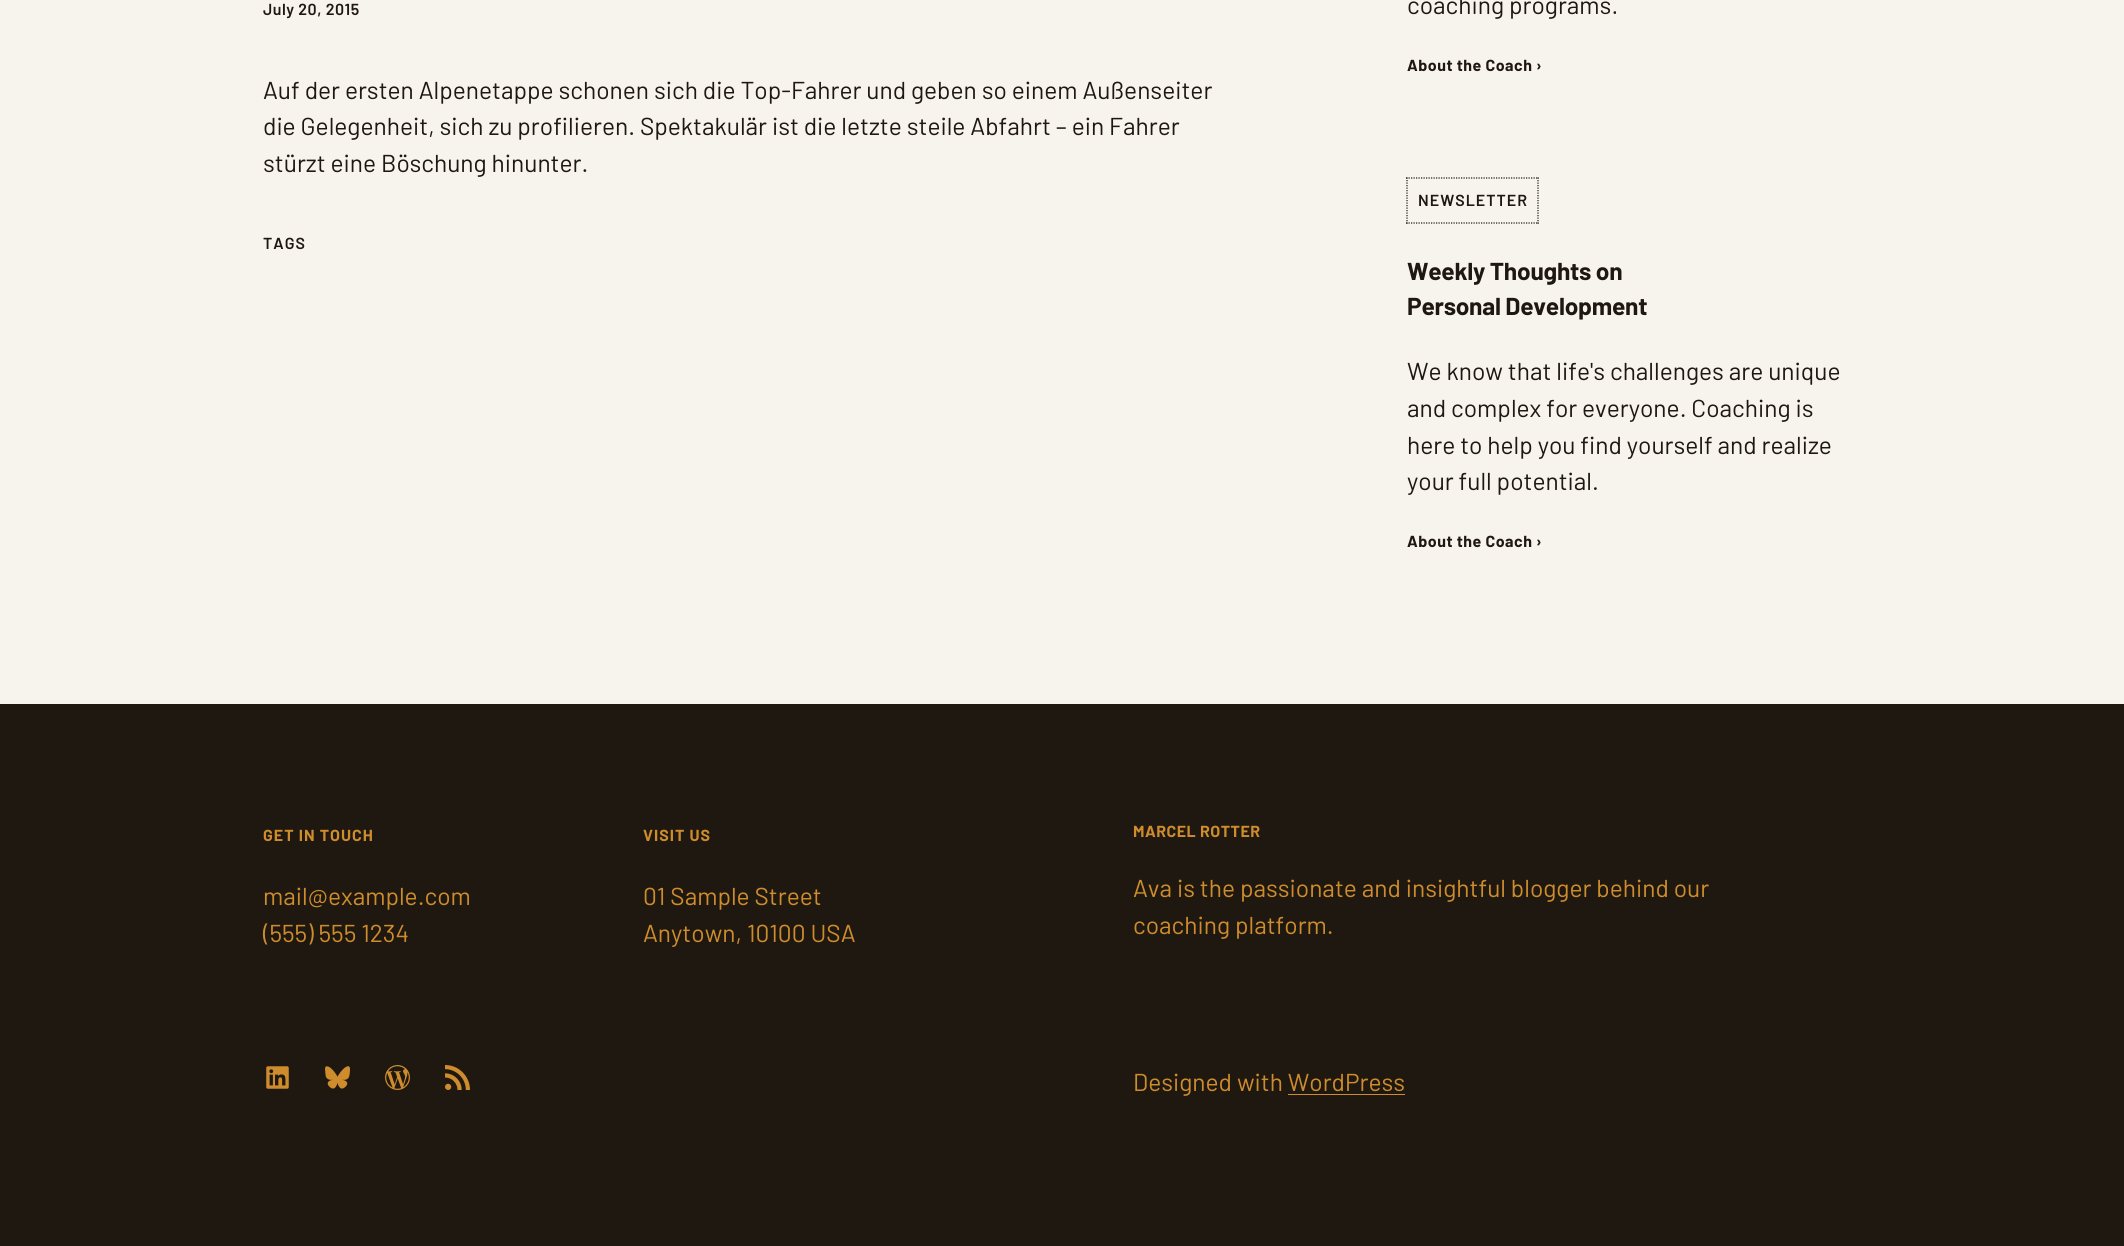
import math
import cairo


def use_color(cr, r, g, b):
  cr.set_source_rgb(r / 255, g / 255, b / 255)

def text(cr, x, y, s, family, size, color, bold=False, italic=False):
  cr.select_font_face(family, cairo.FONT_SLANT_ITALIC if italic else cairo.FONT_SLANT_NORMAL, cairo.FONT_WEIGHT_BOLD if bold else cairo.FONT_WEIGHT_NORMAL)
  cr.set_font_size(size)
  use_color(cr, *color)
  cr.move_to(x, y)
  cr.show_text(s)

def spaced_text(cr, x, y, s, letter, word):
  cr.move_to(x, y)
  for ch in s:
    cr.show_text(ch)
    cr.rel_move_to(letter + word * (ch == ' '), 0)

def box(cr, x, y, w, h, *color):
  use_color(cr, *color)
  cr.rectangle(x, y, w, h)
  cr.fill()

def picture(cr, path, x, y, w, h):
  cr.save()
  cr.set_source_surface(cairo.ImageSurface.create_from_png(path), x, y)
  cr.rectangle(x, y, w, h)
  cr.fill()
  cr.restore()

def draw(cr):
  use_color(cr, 247, 243, 237)
  cr.paint()
  cr.new_path()
  cr.move_to(1406, 178)
  cr.line_to(1539, 178)
  use_color(cr, 30, 24, 16)
  cr.set_line_width(1.2)
  cr.set_dash([1.25, 1.25])
  cr.stroke()
  cr.new_path()
  cr.move_to(1538, 177.5)
  cr.line_to(1538, 224)
  cr.stroke()
  cr.new_path()
  cr.move_to(1406, 223)
  cr.line_to(1539, 223)
  cr.stroke()
  cr.new_path()
  cr.move_to(1407, 177.5)
  cr.line_to(1407, 224)
  cr.stroke()
  box(cr, 0, 704, 2124, 542, 30, 24, 16)
  picture(cr, "img_01.png", 266, 1066, 23, 23)
  picture(cr, "img_02.png", 325, 1066, 25, 23)
  picture(cr, "img_03.png", 385, 1065, 25, 25)
  picture(cr, "img_04.png", 445, 1065, 25, 25)
  box(cr, 1288, 1094, 117, 1, 206, 140, 44)
  cr.select_font_face("Barlow SemiBold")
  cr.set_font_size(16)
  use_color(cr, 30, 24, 16)
  spaced_text(cr, 263, 15, "July 20, 2015", 0.5, 0)
  text(cr, 263, 99, "Auf der ersten Alpenetappe schonen sich die Top-Fahrer und geben so einem Außenseiter", "Barlow", 24.5, (30, 24, 16))
  text(cr, 263, 135, "die Gelegenheit, sich zu profilieren. Spektakulär ist die letzte steile Abfahrt – ein Fahrer", "Barlow", 24.5, (30, 24, 16))
  text(cr, 263, 172, "stürzt eine Böschung hinunter.", "Barlow", 24.5, (30, 24, 16))
  cr.select_font_face("Barlow SemiBold")
  cr.set_font_size(16)
  spaced_text(cr, 263, 249, "TAGS", 1, 0)
  text(cr, 1407, 14, "coaching programs.", "Barlow", 24.5, (30, 24, 16))
  cr.select_font_face("Barlow", cairo.FONT_SLANT_NORMAL, cairo.FONT_WEIGHT_BOLD)
  cr.set_font_size(16)
  spaced_text(cr, 1407, 71, "About the Coach ›", 0.5, 0)
  cr.select_font_face("Barlow SemiBold")
  spaced_text(cr, 1418, 206, "NEWSLETTER", 1, 0)
  cr.select_font_face("Barlow", cairo.FONT_SLANT_NORMAL, cairo.FONT_WEIGHT_BOLD)
  cr.set_font_size(24.5)
  spaced_text(cr, 1407, 280, "Weekly Thoughts on", -0.25, 0)
  spaced_text(cr, 1407, 315, "Personal Development", -0.25, 0)
  text(cr, 1407, 380, "We know that life's challenges are unique", "Barlow", 24.5, (30, 24, 16))
  text(cr, 1407, 417, "and complex for everyone. Coaching is", "Barlow", 24.5, (30, 24, 16))
  text(cr, 1407, 454, "here to help you find yourself and realize", "Barlow", 24.5, (30, 24, 16))
  text(cr, 1407, 490, "your full potential.", "Barlow", 24.5, (30, 24, 16))
  cr.select_font_face("Barlow", cairo.FONT_SLANT_NORMAL, cairo.FONT_WEIGHT_BOLD)
  cr.set_font_size(16)
  spaced_text(cr, 1407, 547, "About the Coach ›", 0.5, 0)
  use_color(cr, 206, 140, 44)
  spaced_text(cr, 263, 841, "GET IN TOUCH", 1, 0)
  text(cr, 263, 905, "mail@example.com", "Barlow", 24.5, (206, 140, 44))
  text(cr, 263, 942, "(555) 555 1234", "Barlow", 24.5, (206, 140, 44))
  cr.select_font_face("Barlow", cairo.FONT_SLANT_NORMAL, cairo.FONT_WEIGHT_BOLD)
  cr.set_font_size(16)
  spaced_text(cr, 643, 841, "VISIT US", 1, 0)
  text(cr, 643, 905, "01 Sample Street", "Barlow", 24.5, (206, 140, 44))
  text(cr, 643, 942, "Anytown, 10100 USA", "Barlow", 24.5, (206, 140, 44))
  cr.select_font_face("Barlow", cairo.FONT_SLANT_NORMAL, cairo.FONT_WEIGHT_BOLD)
  cr.set_font_size(16)
  spaced_text(cr, 1133, 837, "MARCEL ROTTER", 0.5, 0)
  text(cr, 1133, 897, "Ava is the passionate and insightful blogger behind our", "Barlow", 24.5, (206, 140, 44))
  text(cr, 1133, 934, "coaching platform.", "Barlow", 24.5, (206, 140, 44))
  text(cr, 1133, 1091, "Designed with WordPress", "Barlow", 24.5, (206, 140, 44))


surface = cairo.ImageSurface(cairo.FORMAT_RGB24, 2124, 1246)
cr = cairo.Context(surface)
options = cairo.FontOptions()
options.set_hint_metrics(cairo.HINT_METRICS_OFF)
options.set_hint_style(cairo.HINT_STYLE_NONE)
cr.set_font_options(options)
cr.set_miter_limit(4)
draw(cr)
surface.write_to_png("out.png")
